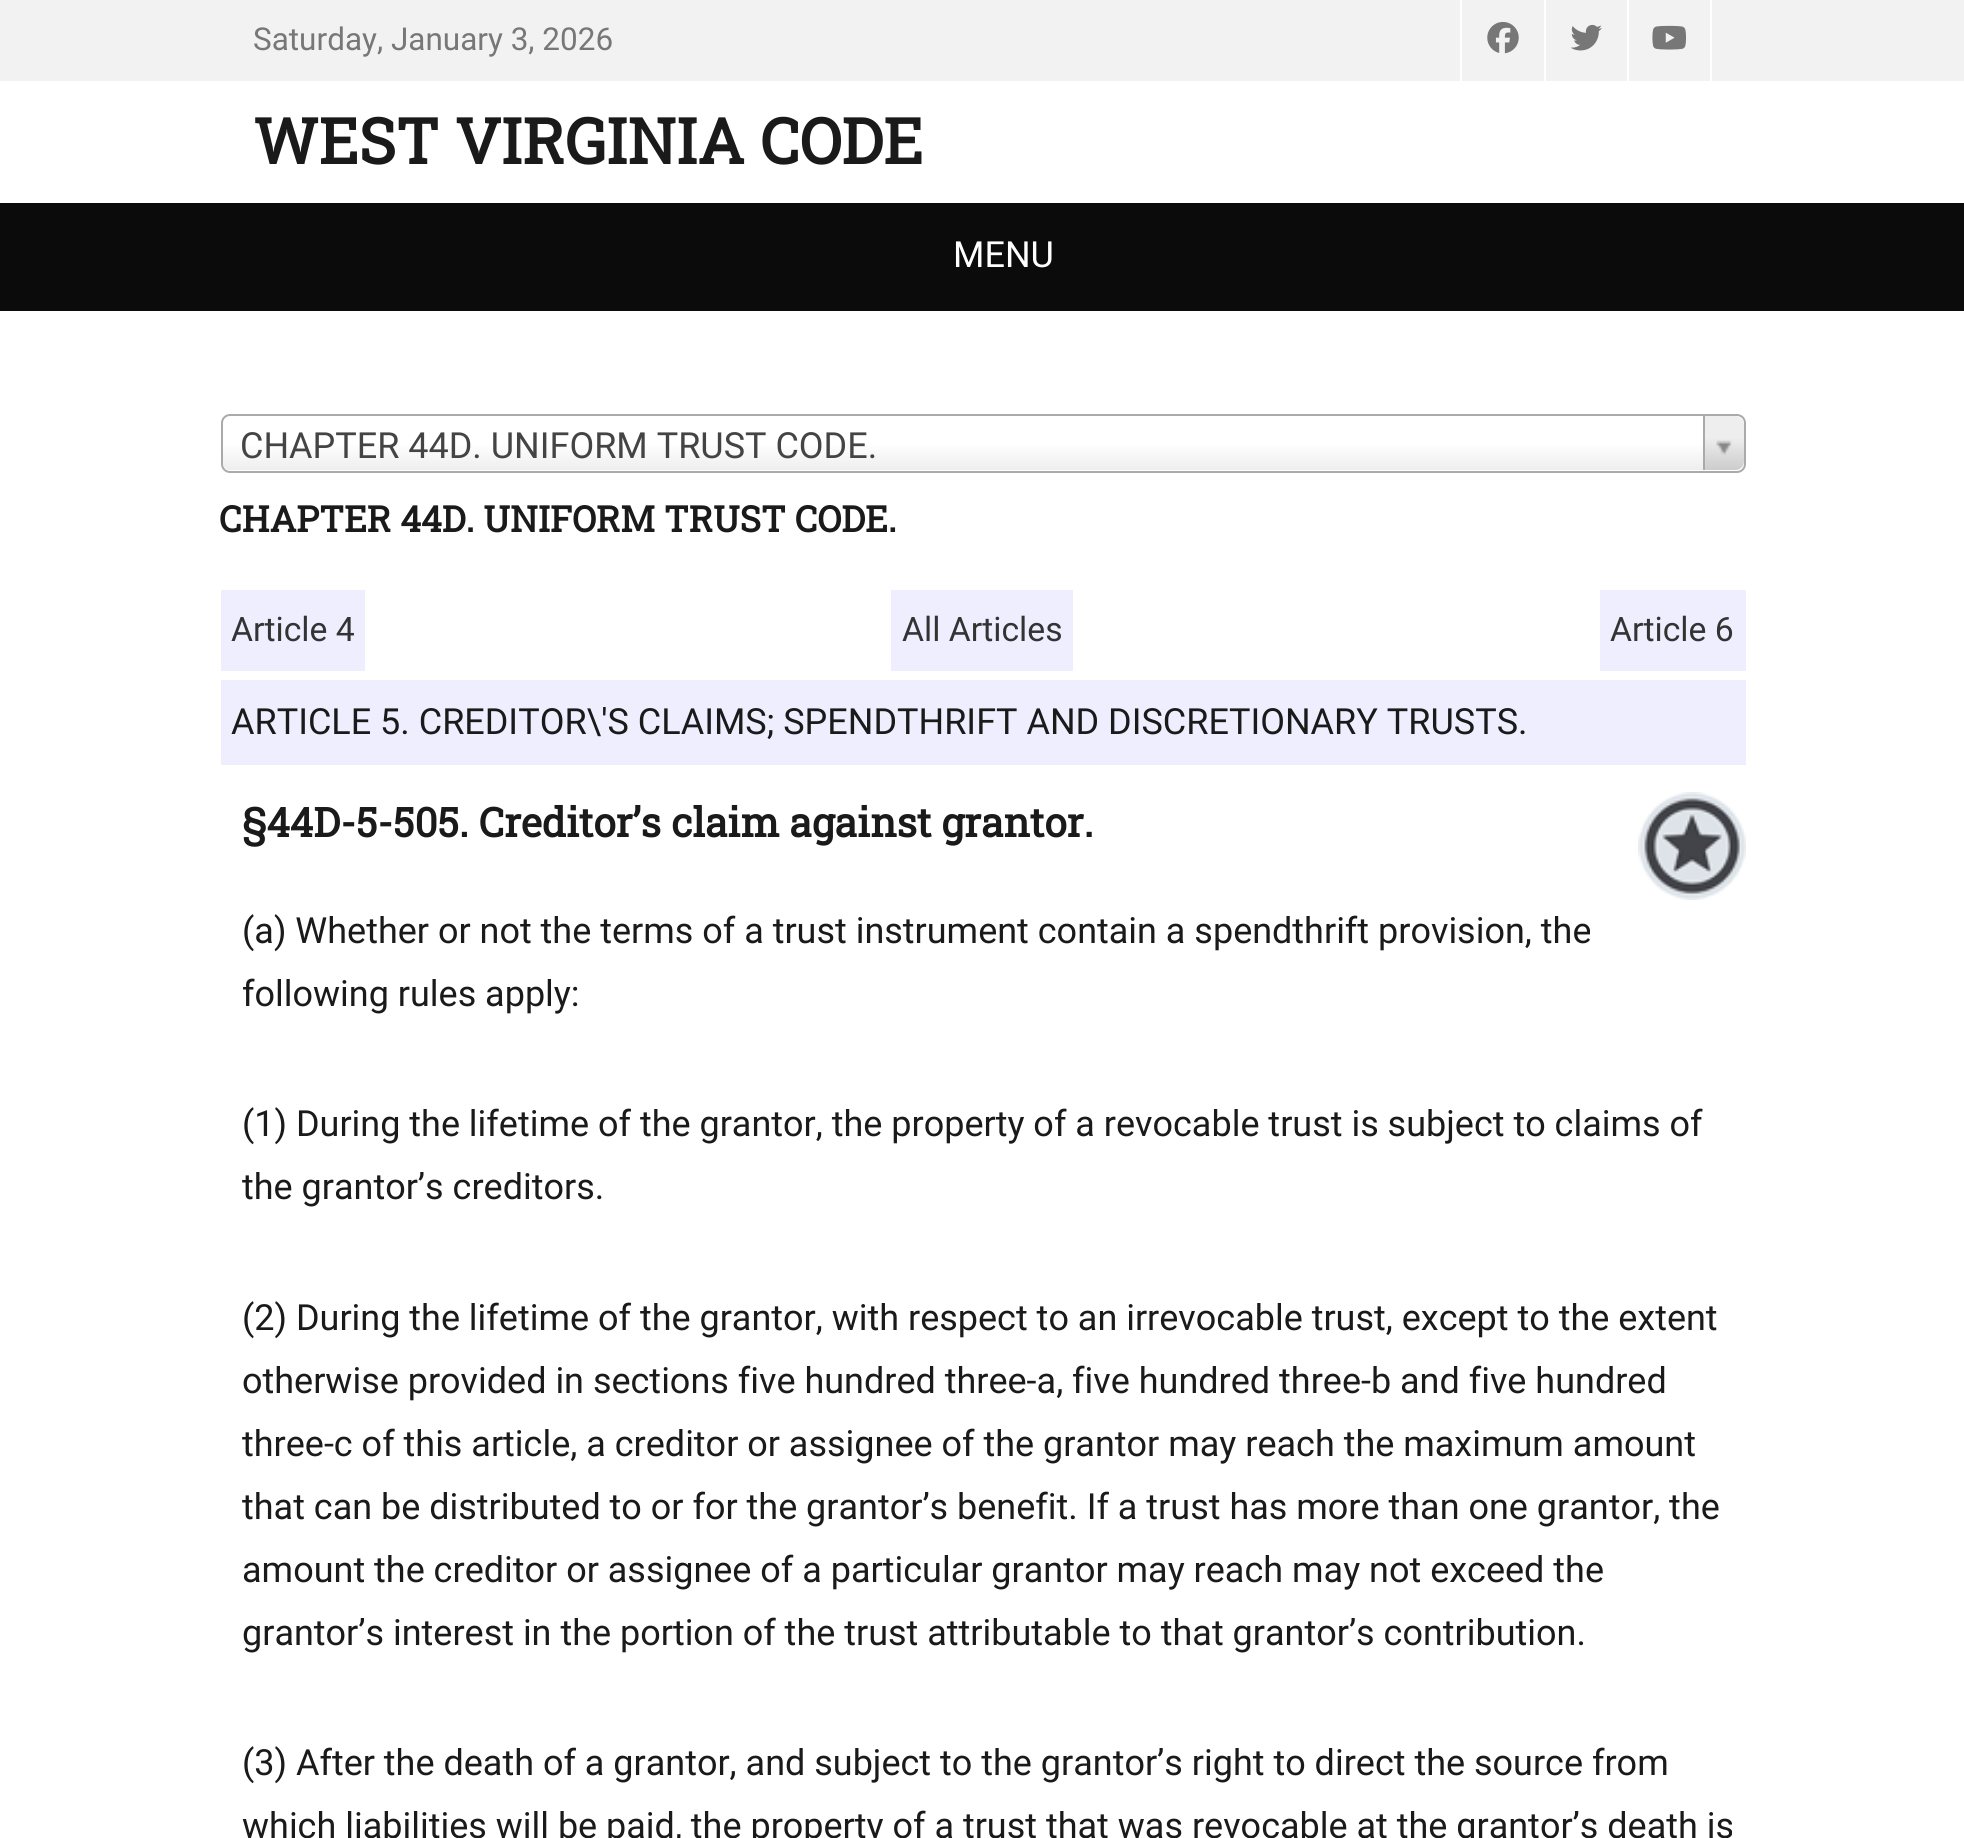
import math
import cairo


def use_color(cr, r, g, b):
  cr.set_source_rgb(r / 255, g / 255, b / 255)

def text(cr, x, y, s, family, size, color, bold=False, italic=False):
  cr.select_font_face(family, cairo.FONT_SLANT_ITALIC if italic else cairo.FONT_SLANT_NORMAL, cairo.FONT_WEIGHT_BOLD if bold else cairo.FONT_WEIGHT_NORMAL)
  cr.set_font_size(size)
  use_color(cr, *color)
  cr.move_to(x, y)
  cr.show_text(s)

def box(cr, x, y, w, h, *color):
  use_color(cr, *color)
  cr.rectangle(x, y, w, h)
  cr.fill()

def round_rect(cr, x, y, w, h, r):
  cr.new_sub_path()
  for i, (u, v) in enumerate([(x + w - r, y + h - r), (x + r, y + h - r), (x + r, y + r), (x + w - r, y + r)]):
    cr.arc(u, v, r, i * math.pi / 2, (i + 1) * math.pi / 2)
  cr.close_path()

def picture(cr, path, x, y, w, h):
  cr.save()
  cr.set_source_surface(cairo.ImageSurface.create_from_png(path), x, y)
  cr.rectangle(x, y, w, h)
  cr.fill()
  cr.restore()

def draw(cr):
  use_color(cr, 255, 255, 255)
  cr.paint()
  box(cr, 0, 0, 1964, 81, 242, 242, 242)
  box(cr, 1460, 0, 2, 81, 255, 255, 255)
  picture(cr, "img_01.png", 1487, 22, 32, 32)
  box(cr, 1544, 0, 2, 81, 255, 255, 255)
  picture(cr, "img_02.png", 1570, 24, 32, 27)
  box(cr, 1710, 0, 2, 81, 255, 255, 255)
  box(cr, 1627, 0, 2, 81, 255, 255, 255)
  picture(cr, "img_03.png", 1652, 25, 34, 25)
  box(cr, 0, 203, 1964, 108, 11, 11, 11)
  gradient = cairo.LinearGradient(983, 470, 983, 416)
  gradient.add_color_stop_rgba(0, 0.933, 0.933, 0.933, 1)
  gradient.add_color_stop_rgba(0.5, 1, 1, 1, 1)
  cr.set_source(gradient)
  round_rect(cr, 223, 416, 1521, 54, 7)
  cr.fill()
  round_rect(cr, 222, 415, 1523, 57, 8)
  use_color(cr, 170, 170, 170)
  cr.stroke()
  gradient = cairo.LinearGradient(1725, 470, 1725, 416)
  gradient.add_color_stop_rgba(0, 0.8, 0.8, 0.8, 1)
  gradient.add_color_stop_rgba(0.6, 0.933, 0.933, 0.933, 1)
  cr.set_source(gradient)
  cr.new_path()
  cr.move_to(1703, 416)
  cr.line_to(1735, 416)
  cr.curve_to(1740, 416, 1744, 420, 1744, 425)
  cr.line_to(1744, 461)
  cr.curve_to(1744, 466, 1740, 470, 1735, 470)
  cr.line_to(1703, 470)
  cr.close_path()
  cr.fill()
  box(cr, 1703, 416, 2, 54, 170, 170, 170)
  picture(cr, "img_04.png", 1716, 440, 16, 15)
  box(cr, 221, 590, 144, 81, 238, 238, 255)
  box(cr, 891, 590, 182, 81, 238, 238, 255)
  box(cr, 1600, 590, 146, 81, 238, 238, 255)
  box(cr, 221, 680, 1525, 85, 238, 238, 255)
  picture(cr, "img_05.png", 1638, 792, 108, 108)
  text(cr, 253, 50, "Saturday, January 3, 2026", "Roboto", 31.5, (119, 119, 119))
  text(cr, 253, 164, "WEST VIRGINIA CODE", "Roboto Slab", 63, (26, 26, 26), bold=True)
  text(cr, 953, 267, "MENU", "Roboto", 36, (255, 255, 255))
  text(cr, 240, 458, "CHAPTER 44D. UNIFORM TRUST CODE.", "Roboto", 36, (68, 68, 68))
  text(cr, 219, 532, "CHAPTER 44D. UNIFORM TRUST CODE.", "Roboto Slab", 36, (26, 26, 26), bold=True)
  text(cr, 231, 641, "Article 4", "Roboto", 33.75, (51, 51, 51))
  text(cr, 902, 641, "All Articles", "Roboto", 33.75, (51, 51, 51))
  text(cr, 1610, 641, "Article 6", "Roboto", 33.75, (51, 51, 51))
  text(cr, 231, 734, "ARTICLE 5. CREDITOR\\'S CLAIMS; SPENDTHRIFT AND DISCRETIONARY TRUSTS.", "Roboto", 36, (26, 26, 26))
  text(cr, 242, 837, "§44D-5-505. Creditor’s claim against grantor.", "Roboto Slab", 40.5, (26, 26, 26), bold=True)
  text(cr, 242, 943, "(a) Whether or not the terms of a trust instrument contain a spendthrift provision, the", "Roboto", 36, (26, 26, 26))
  text(cr, 242, 1006, "following rules apply:", "Roboto", 36, (26, 26, 26))
  text(cr, 242, 1136, "(1) During the lifetime of the grantor, the property of a revocable trust is subject to claims of", "Roboto", 36, (26, 26, 26))
  text(cr, 242, 1199, "the grantor’s creditors.", "Roboto", 36, (26, 26, 26))
  text(cr, 242, 1330, "(2) During the lifetime of the grantor, with respect to an irrevocable trust, except to the extent", "Roboto", 36, (26, 26, 26))
  text(cr, 242, 1393, "otherwise provided in sections five hundred three-a, five hundred three-b and five hundred", "Roboto", 36, (26, 26, 26))
  text(cr, 242, 1456, "three-c of this article, a creditor or assignee of the grantor may reach the maximum amount", "Roboto", 36, (26, 26, 26))
  text(cr, 242, 1519, "that can be distributed to or for the grantor’s benefit. If a trust has more than one grantor, the", "Roboto", 36, (26, 26, 26))
  text(cr, 242, 1582, "amount the creditor or assignee of a particular grantor may reach may not exceed the", "Roboto", 36, (26, 26, 26))
  text(cr, 242, 1645, "grantor’s interest in the portion of the trust attributable to that grantor’s contribution.", "Roboto", 36, (26, 26, 26))
  text(cr, 242, 1775, "(3) After the death of a grantor, and subject to the grantor’s right to direct the source from", "Roboto", 36, (26, 26, 26))
  text(cr, 242, 1838, "which liabilities will be paid, the property of a trust that was revocable at the grantor’s death is", "Roboto", 36, (26, 26, 26))


surface = cairo.ImageSurface(cairo.FORMAT_RGB24, 1964, 1838)
cr = cairo.Context(surface)
options = cairo.FontOptions()
options.set_hint_metrics(cairo.HINT_METRICS_OFF)
options.set_hint_style(cairo.HINT_STYLE_NONE)
cr.set_font_options(options)
cr.set_miter_limit(4)
draw(cr)
surface.write_to_png("out.png")
